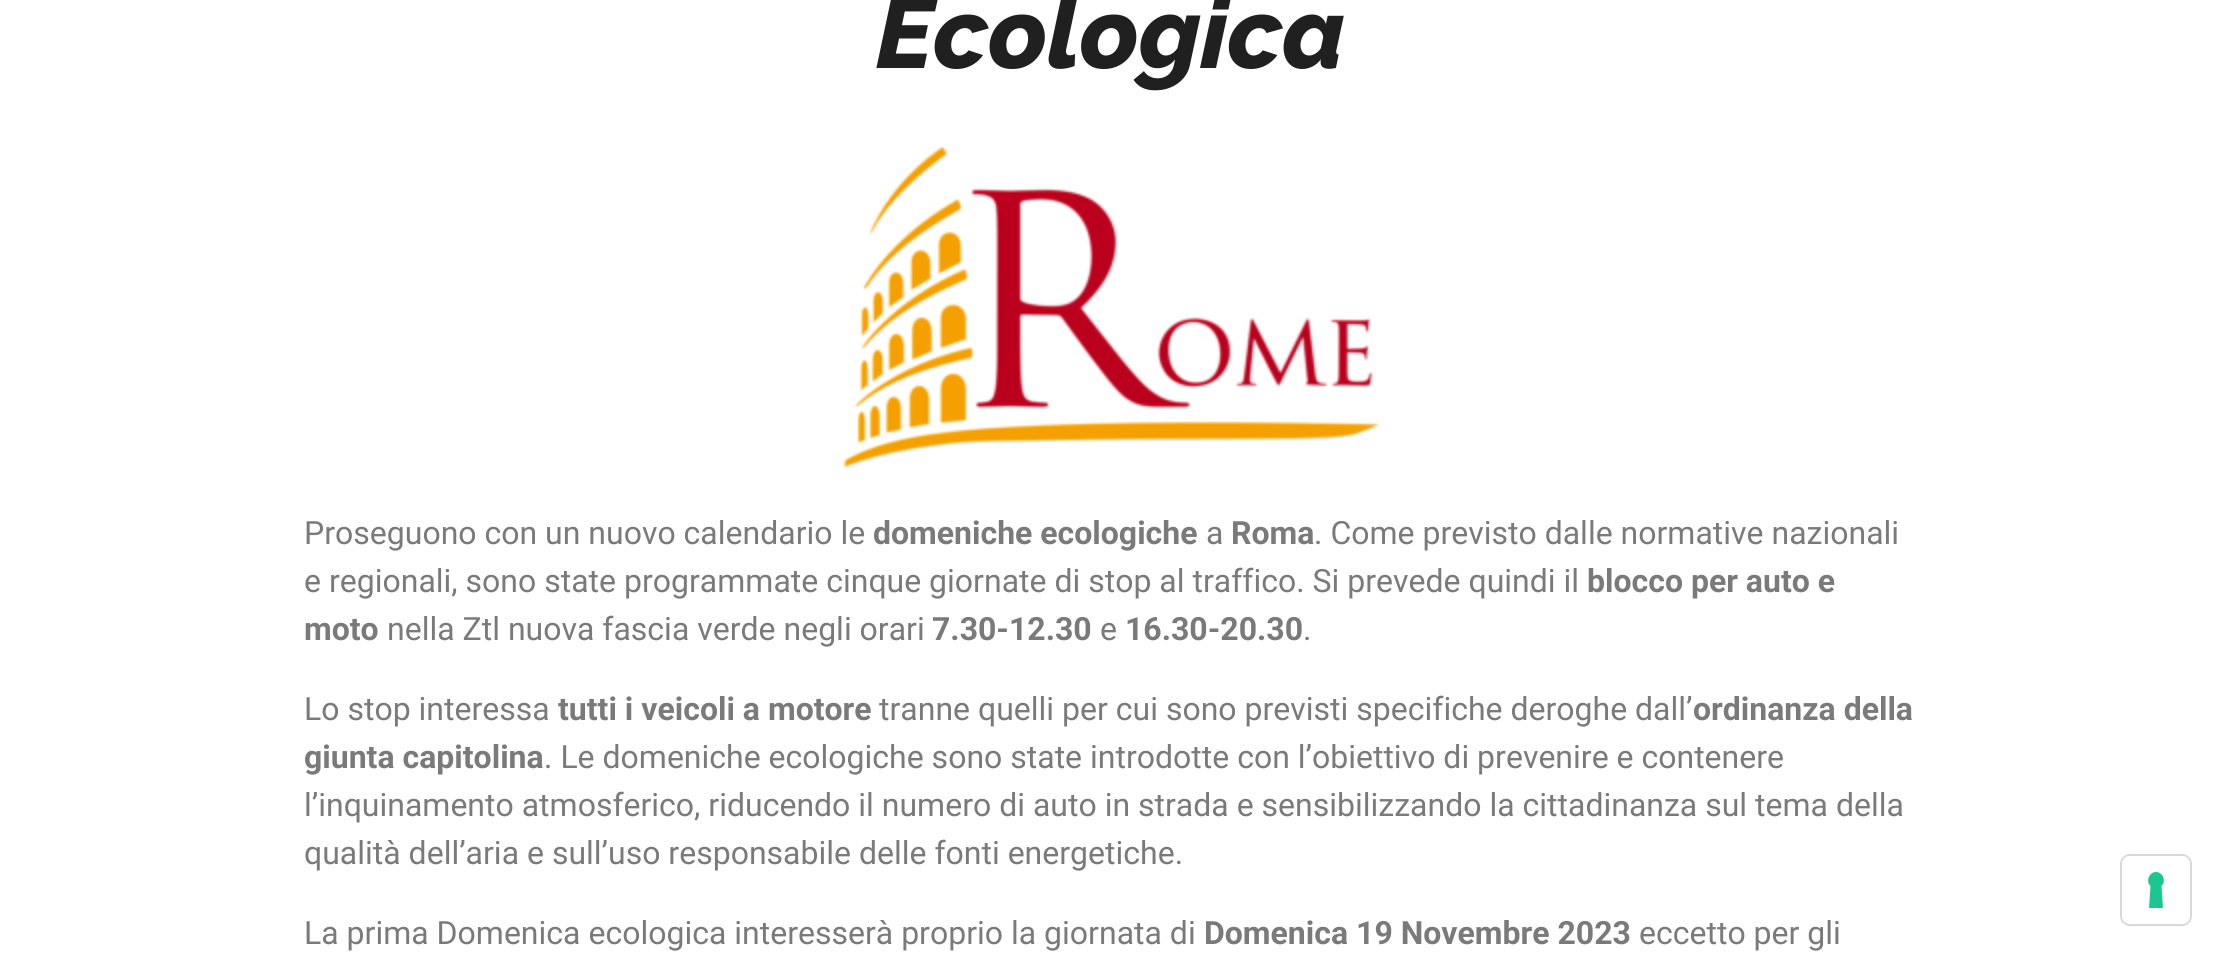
import math
import cairo


def use_color(cr, r, g, b):
  cr.set_source_rgb(r / 255, g / 255, b / 255)

def text(cr, x, y, s, family, size, color, bold=False, italic=False):
  cr.select_font_face(family, cairo.FONT_SLANT_ITALIC if italic else cairo.FONT_SLANT_NORMAL, cairo.FONT_WEIGHT_BOLD if bold else cairo.FONT_WEIGHT_NORMAL)
  cr.set_font_size(size)
  use_color(cr, *color)
  cr.move_to(x, y)
  cr.show_text(s)

def round_rect(cr, x, y, w, h, r):
  cr.new_sub_path()
  for i, (u, v) in enumerate([(x + w - r, y + h - r), (x + r, y + h - r), (x + r, y + r), (x + w - r, y + r)]):
    cr.arc(u, v, r, i * math.pi / 2, (i + 1) * math.pi / 2)
  cr.close_path()

def picture(cr, path, x, y, w, h):
  cr.save()
  cr.set_source_surface(cairo.ImageSurface.create_from_png(path), x, y)
  cr.rectangle(x, y, w, h)
  cr.fill()
  cr.restore()

def draw(cr):
  use_color(cr, 255, 255, 255)
  cr.paint()
  picture(cr, "img_01.png", 843, 145, 537, 324)
  round_rect(cr, 2121, 855, 70, 70, 9)
  use_color(cr, 217, 217, 217)
  cr.stroke()
  use_color(cr, 255, 255, 255)
  round_rect(cr, 2122, 856, 68, 68, 8)
  cr.fill()
  use_color(cr, 28, 198, 145)
  cr.set_fill_rule(cairo.FILL_RULE_EVEN_ODD)
  cr.new_path()
  cr.move_to(2156, 872)
  cr.curve_to(2163, 872, 2166.5, 881.5, 2161.5, 886)
  cr.line_to(2163, 908)
  cr.line_to(2149, 908)
  cr.line_to(2150.5, 886)
  cr.curve_to(2145.5, 881.5, 2149, 872, 2156, 872)
  cr.close_path()
  cr.fill()
  text(cr, 876, 68, "Ecologica", "Raleway ExtraBold", 100, (32, 32, 32), italic=True)
  text(cr, 304, 544, "Proseguono con un nuovo calendario le", "Roboto", 32, (122, 122, 122))
  text(cr, 873, 544, "domeniche ecologiche", "Roboto", 32, (122, 122, 122), bold=True)
  text(cr, 1206, 544, "a", "Roboto", 32, (122, 122, 122))
  text(cr, 1231, 544, "Roma", "Roboto", 32, (122, 122, 122), bold=True)
  text(cr, 1314, 544, ". Come previsto dalle normative nazionali", "Roboto", 32, (122, 122, 122))
  text(cr, 304, 592, "e regionali, sono state programmate cinque giornate di stop al traffico. Si prevede quindi il", "Roboto", 32, (122, 122, 122))
  text(cr, 1587, 592, "blocco per auto e", "Roboto", 32, (122, 122, 122), bold=True)
  text(cr, 304, 640, "moto", "Roboto", 32, (122, 122, 122), bold=True)
  text(cr, 387, 640, "nella Ztl nuova fascia verde negli orari", "Roboto", 32, (122, 122, 122))
  text(cr, 932, 640, "7.30-12.30", "Roboto", 32, (122, 122, 122), bold=True)
  text(cr, 1100, 640, "e", "Roboto", 32, (122, 122, 122))
  text(cr, 1125, 640, "16.30-20.30", "Roboto", 32, (122, 122, 122), bold=True)
  text(cr, 1303, 640, ".", "Roboto", 32, (122, 122, 122))
  text(cr, 304, 720, "Lo stop interessa", "Roboto", 32, (122, 122, 122))
  text(cr, 558, 720, "tutti i veicoli a motore", "Roboto", 32, (122, 122, 122), bold=True)
  text(cr, 879, 720, "tranne quelli per cui sono previsti specifiche deroghe dall’", "Roboto", 32, (122, 122, 122))
  text(cr, 1693, 720, "ordinanza della", "Roboto", 32, (122, 122, 122), bold=True)
  text(cr, 304, 768, "giunta capitolina", "Roboto", 32, (122, 122, 122), bold=True)
  text(cr, 544, 768, ". Le domeniche ecologiche sono state introdotte con l’obiettivo di prevenire e contenere", "Roboto", 32, (122, 122, 122))
  text(cr, 304, 816, "l’inquinamento atmosferico, riducendo il numero di auto in strada e sensibilizzando la cittadinanza sul tema della", "Roboto", 32, (122, 122, 122))
  text(cr, 304, 864, "qualità dell’aria e sull’uso responsabile delle fonti energetiche.", "Roboto", 32, (122, 122, 122))
  text(cr, 304, 944, "La prima Domenica ecologica interesserà proprio la giornata di", "Roboto", 32, (122, 122, 122))
  text(cr, 1204, 944, "Domenica 19 Novembre 2023", "Roboto", 32, (122, 122, 122), bold=True)
  text(cr, 1639, 944, "eccetto per gli", "Roboto", 32, (122, 122, 122))


surface = cairo.ImageSurface(cairo.FORMAT_RGB24, 2221, 955)
cr = cairo.Context(surface)
options = cairo.FontOptions()
options.set_hint_metrics(cairo.HINT_METRICS_OFF)
options.set_hint_style(cairo.HINT_STYLE_NONE)
cr.set_font_options(options)
cr.set_miter_limit(4)
draw(cr)
surface.write_to_png("out.png")
